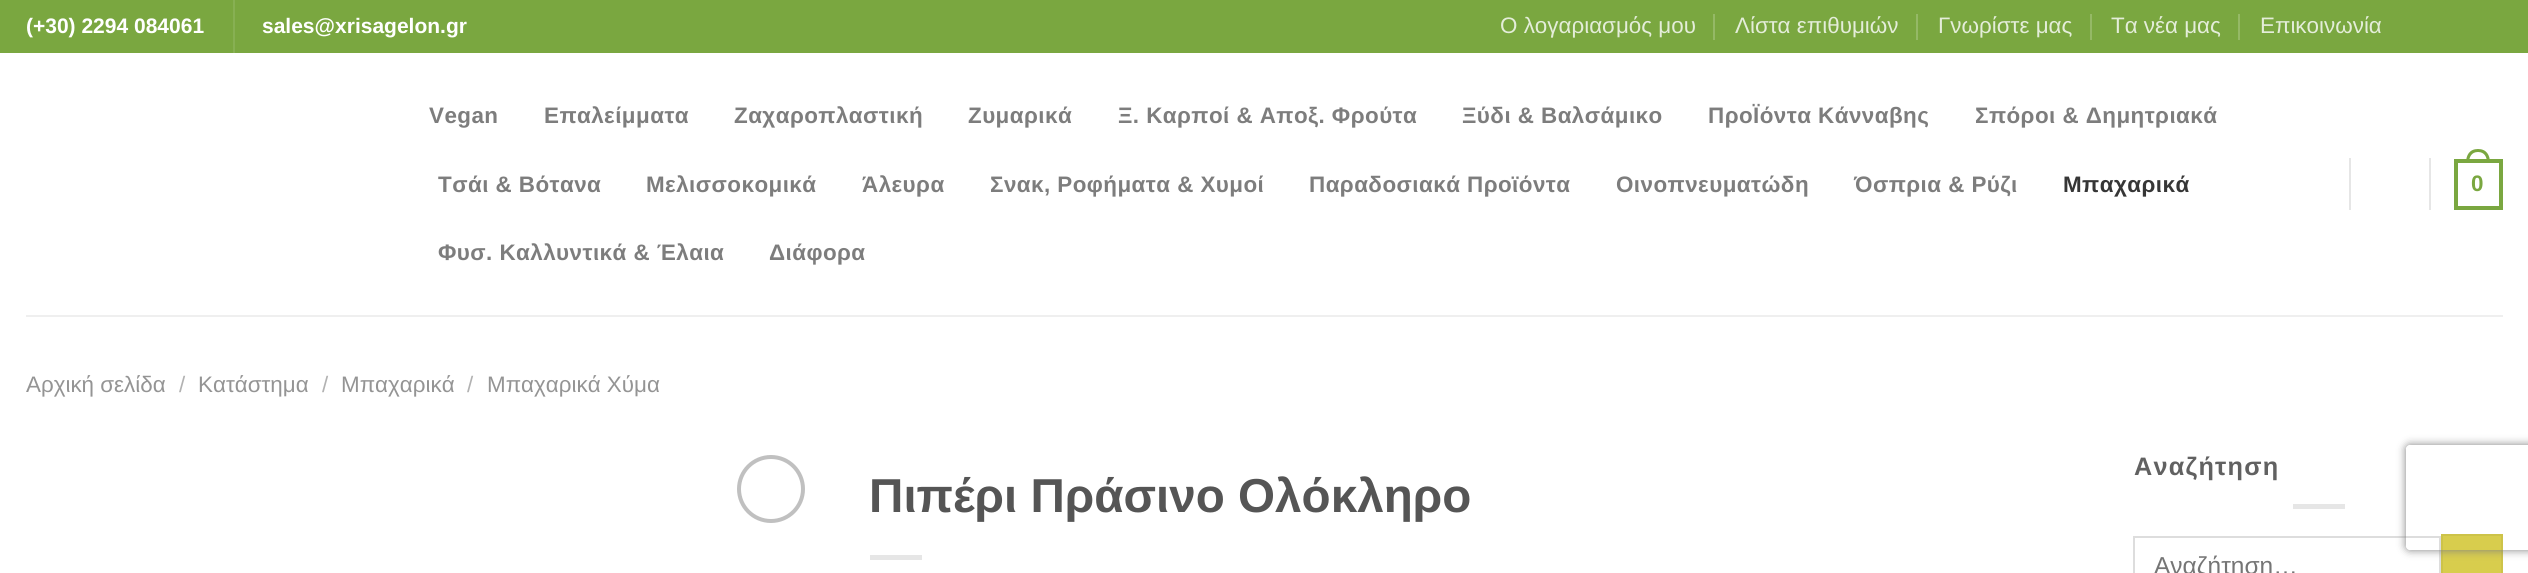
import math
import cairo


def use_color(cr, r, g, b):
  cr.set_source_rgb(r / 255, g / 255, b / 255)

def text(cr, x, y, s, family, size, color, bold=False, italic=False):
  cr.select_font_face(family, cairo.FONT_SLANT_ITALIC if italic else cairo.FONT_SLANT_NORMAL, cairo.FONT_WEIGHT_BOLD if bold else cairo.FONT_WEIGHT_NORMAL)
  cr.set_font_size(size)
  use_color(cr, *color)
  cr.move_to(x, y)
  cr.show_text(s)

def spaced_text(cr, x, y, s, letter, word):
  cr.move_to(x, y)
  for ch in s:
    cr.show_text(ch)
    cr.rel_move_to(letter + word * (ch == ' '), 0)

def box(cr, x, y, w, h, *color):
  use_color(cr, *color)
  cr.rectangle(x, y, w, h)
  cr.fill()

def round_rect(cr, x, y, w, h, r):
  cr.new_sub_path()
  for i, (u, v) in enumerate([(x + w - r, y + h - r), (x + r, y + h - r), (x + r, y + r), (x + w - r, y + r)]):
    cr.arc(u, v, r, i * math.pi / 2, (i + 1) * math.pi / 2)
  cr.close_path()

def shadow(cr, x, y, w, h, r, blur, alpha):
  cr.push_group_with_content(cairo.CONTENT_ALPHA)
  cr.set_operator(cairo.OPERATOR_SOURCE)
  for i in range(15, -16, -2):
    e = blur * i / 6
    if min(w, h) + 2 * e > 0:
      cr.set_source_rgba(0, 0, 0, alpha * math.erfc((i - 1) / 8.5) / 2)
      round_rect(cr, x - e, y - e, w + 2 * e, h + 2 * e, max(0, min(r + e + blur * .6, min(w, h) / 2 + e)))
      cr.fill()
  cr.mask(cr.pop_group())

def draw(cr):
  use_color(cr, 255, 255, 255)
  cr.paint()
  box(cr, 0, 0, 2528, 53, 122, 167, 64)
  box(cr, 233, 0, 2, 53, 135, 176, 83)
  box(cr, 1713, 14, 2, 26, 149, 185, 102)
  box(cr, 1916, 14, 2, 26, 149, 185, 102)
  box(cr, 2090, 14, 2, 26, 149, 185, 102)
  box(cr, 2238, 14, 2, 26, 149, 185, 102)
  box(cr, 2349, 158, 2, 52, 230, 230, 230)
  box(cr, 2429, 158, 2, 52, 230, 230, 230)
  cr.rectangle(2456, 161, 45, 47)
  use_color(cr, 122, 167, 64)
  cr.set_line_width(4)
  cr.stroke()
  cr.set_fill_rule(cairo.FILL_RULE_EVEN_ODD)
  cr.new_path()
  cr.move_to(2478, 149)
  cr.curve_to(2486.5, 149, 2490, 155, 2490, 163)
  cr.line_to(2466, 163)
  cr.curve_to(2466, 155, 2469.5, 149, 2478, 149)
  cr.close_path()
  cr.move_to(2478, 152)
  cr.curve_to(2484.5, 152, 2487, 157, 2487, 163)
  cr.line_to(2469, 163)
  cr.curve_to(2469, 157, 2471.5, 152, 2478, 152)
  cr.close_path()
  cr.fill()
  box(cr, 26, 315, 2477, 2, 239, 239, 239)
  cr.arc(771, 489, 32, 0, 2 * math.pi)
  use_color(cr, 192, 192, 192)
  cr.stroke()
  box(cr, 870, 555, 52, 5, 230, 230, 230)
  box(cr, 2293, 504, 52, 5, 230, 230, 230)
  cr.rectangle(2134, 537, 306, 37)
  use_color(cr, 221, 221, 221)
  cr.set_line_width(2)
  cr.stroke()
  use_color(cr, 216, 205, 77)
  cr.rectangle(2442, 535, 60, 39)
  cr.fill_preserve()
  use_color(cr, 205, 195, 73)
  cr.stroke()
  cr.save()
  cr.new_path()
  cr.move_to(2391, 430)
  cr.line_to(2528, 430)
  cr.line_to(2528, 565)
  cr.line_to(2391, 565)
  cr.close_path()
  cr.move_to(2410, 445)
  cr.line_to(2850, 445)
  cr.curve_to(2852, 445, 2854, 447, 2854, 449)
  cr.line_to(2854, 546)
  cr.curve_to(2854, 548, 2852, 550, 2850, 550)
  cr.line_to(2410, 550)
  cr.curve_to(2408, 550, 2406, 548, 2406, 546)
  cr.line_to(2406, 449)
  cr.curve_to(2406, 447, 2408, 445, 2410, 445)
  cr.close_path()
  cr.clip()
  use_color(cr, 128, 128, 128)
  shadow(cr, 2406, 445, 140, 105, 4, 4.5, 1)
  cr.restore()
  text(cr, 26, 33, "(+30) 2294 084061", "Liberation Sans", 21, (255, 255, 255), bold=True)
  text(cr, 262, 33, "sales@xrisagelon.gr", "Liberation Sans", 21, (255, 255, 255), bold=True)
  text(cr, 1500, 33, "Ο λογαριασμός μου", "Liberation Sans", 22.4, (228, 237, 217))
  text(cr, 1735, 33, "Λίστα επιθυμιών", "Liberation Sans", 22.4, (228, 237, 217))
  text(cr, 1938, 33, "Γνωρίστε μας", "Liberation Sans", 22.4, (228, 237, 217))
  text(cr, 2111, 33, "Τα νέα μας", "Liberation Sans", 22.4, (228, 237, 217))
  text(cr, 2260, 33, "Επικοινωνία", "Liberation Sans", 22.4, (228, 237, 217))
  cr.select_font_face("Liberation Sans", cairo.FONT_SLANT_NORMAL, cairo.FONT_WEIGHT_BOLD)
  use_color(cr, 125, 125, 125)
  spaced_text(cr, 429, 123, "Vegan", 0.45, 0)
  spaced_text(cr, 544, 123, "Επαλείμματα", 0.45, 0)
  spaced_text(cr, 734, 123, "Ζαχαροπλαστική", 0.45, 0)
  spaced_text(cr, 968, 123, "Ζυμαρικά", 0.45, 0)
  spaced_text(cr, 1118, 123, "Ξ. Καρποί & Αποξ. Φρούτα", 0.45, 0)
  spaced_text(cr, 1462, 123, "Ξύδι & Βαλσάμικο", 0.45, 0)
  spaced_text(cr, 1708, 123, "ΠροΪόντα Κάνναβης", 0.45, 0)
  spaced_text(cr, 1975, 123, "Σπόροι & Δημητριακά", 0.45, 0)
  spaced_text(cr, 438, 192, "Τσάι & Βότανα", 0.45, 0)
  spaced_text(cr, 646, 192, "Μελισσοκομικά", 0.45, 0)
  spaced_text(cr, 862, 192, "Άλευρα", 0.45, 0)
  spaced_text(cr, 990, 192, "Σνακ, Ροφήματα & Χυμοί", 0.45, 0)
  spaced_text(cr, 1309, 192, "Παραδοσιακά Προϊόντα", 0.45, 0)
  spaced_text(cr, 1616, 192, "Οινοπνευματώδη", 0.45, 0)
  spaced_text(cr, 1854, 192, "Όσπρια & Ρύζι", 0.45, 0)
  use_color(cr, 54, 54, 54)
  spaced_text(cr, 2063, 192, "Μπαχαρικά", 0.45, 0)
  use_color(cr, 125, 125, 125)
  spaced_text(cr, 438, 260, "Φυσ. Καλλυντικά & Έλαια", 0.45, 0)
  spaced_text(cr, 769, 260, "Διάφορα", 0.45, 0)
  use_color(cr, 122, 167, 64)
  spaced_text(cr, 2471, 191, "0", 0.45, 0)
  text(cr, 26, 392, "Αρχική σελίδα", "Liberation Sans", 22.4, (148, 148, 148))
  text(cr, 179, 392, "/", "Liberation Sans", 22.4, (178, 178, 178))
  text(cr, 198, 392, "Κατάστημα", "Liberation Sans", 22.4, (148, 148, 148))
  text(cr, 322, 392, "/", "Liberation Sans", 22.4, (178, 178, 178))
  text(cr, 341, 392, "Μπαχαρικά", "Liberation Sans", 22.4, (148, 148, 148))
  text(cr, 467, 392, "/", "Liberation Sans", 22.4, (178, 178, 178))
  text(cr, 487, 392, "Μπαχαρικά Χύμα", "Liberation Sans", 22.4, (148, 148, 148))
  text(cr, 869, 512, "Πιπέρι Πράσινο Ολόκληρο", "Liberation Sans", 47.6, (85, 85, 85), bold=True)
  cr.set_font_size(25.25)
  use_color(cr, 97, 97, 97)
  spaced_text(cr, 2134, 475, "Αναζήτηση", 1.25, 0)
  text(cr, 2154, 574, "Αναζήτηση…", "Liberation Sans", 24.5, (117, 117, 117))


surface = cairo.ImageSurface(cairo.FORMAT_RGB24, 2528, 573)
cr = cairo.Context(surface)
options = cairo.FontOptions()
options.set_hint_metrics(cairo.HINT_METRICS_OFF)
options.set_hint_style(cairo.HINT_STYLE_NONE)
cr.set_font_options(options)
cr.set_miter_limit(4)
draw(cr)
surface.write_to_png("out.png")
